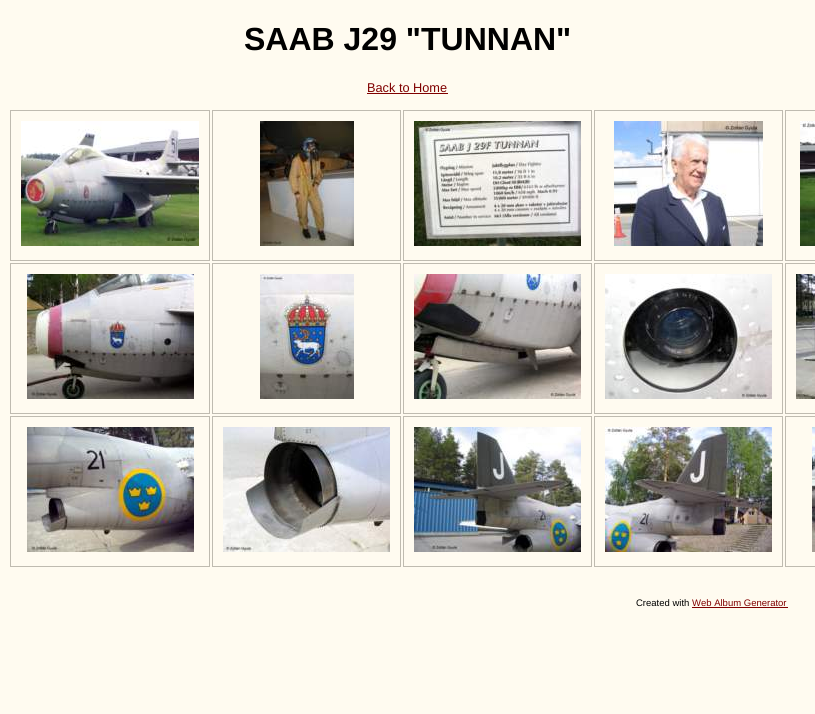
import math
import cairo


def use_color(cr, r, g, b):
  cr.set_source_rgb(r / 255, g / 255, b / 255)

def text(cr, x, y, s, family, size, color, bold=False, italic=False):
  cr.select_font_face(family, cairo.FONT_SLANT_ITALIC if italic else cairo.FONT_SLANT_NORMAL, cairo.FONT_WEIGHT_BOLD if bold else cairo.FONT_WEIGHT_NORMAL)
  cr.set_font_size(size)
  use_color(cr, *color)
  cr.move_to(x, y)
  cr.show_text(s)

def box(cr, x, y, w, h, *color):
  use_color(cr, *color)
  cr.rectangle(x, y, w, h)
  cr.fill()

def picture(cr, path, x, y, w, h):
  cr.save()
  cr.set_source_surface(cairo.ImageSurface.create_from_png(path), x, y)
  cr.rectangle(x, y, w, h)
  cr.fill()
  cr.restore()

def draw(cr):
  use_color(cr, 255, 251, 240)
  cr.paint()
  box(cr, 367, 93, 81, 1, 128, 0, 0)
  cr.rectangle(10.5, 110.5, 199, 150)
  use_color(cr, 191, 187, 176)
  cr.set_line_width(1)
  cr.stroke()
  picture(cr, "img_01.png", 21, 121, 178, 125)
  cr.rectangle(212.5, 110.5, 188, 150)
  cr.stroke()
  picture(cr, "img_02.png", 260, 121, 94, 125)
  cr.rectangle(403.5, 110.5, 188, 150)
  cr.stroke()
  picture(cr, "img_03.png", 414, 121, 167, 125)
  cr.rectangle(594.5, 110.5, 188, 150)
  cr.stroke()
  picture(cr, "img_04.png", 614, 121, 149, 125)
  cr.rectangle(785.5, 110.5, 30, 150)
  cr.stroke()
  picture(cr, "img_05.png", 800, 121, 15, 125)
  cr.rectangle(10.5, 263.5, 199, 150)
  cr.stroke()
  picture(cr, "img_06.png", 27, 274, 167, 125)
  cr.rectangle(212.5, 263.5, 188, 150)
  cr.stroke()
  picture(cr, "img_07.png", 260, 274, 94, 125)
  cr.rectangle(403.5, 263.5, 188, 150)
  cr.stroke()
  picture(cr, "img_08.png", 414, 274, 167, 125)
  cr.rectangle(594.5, 263.5, 188, 150)
  cr.stroke()
  picture(cr, "img_09.png", 605, 274, 167, 125)
  cr.rectangle(785.5, 263.5, 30, 150)
  cr.stroke()
  picture(cr, "img_10.png", 796, 274, 19, 125)
  cr.rectangle(10.5, 416.5, 199, 150)
  cr.stroke()
  picture(cr, "img_11.png", 27, 427, 167, 125)
  cr.rectangle(212.5, 416.5, 188, 150)
  cr.stroke()
  picture(cr, "img_12.png", 223, 427, 167, 125)
  cr.rectangle(403.5, 416.5, 188, 150)
  cr.stroke()
  picture(cr, "img_13.png", 414, 427, 167, 125)
  cr.rectangle(594.5, 416.5, 188, 150)
  cr.stroke()
  picture(cr, "img_14.png", 605, 427, 167, 125)
  cr.rectangle(785.5, 416.5, 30, 150)
  cr.stroke()
  picture(cr, "img_15.png", 812, 427, 3, 125)
  box(cr, 692, 607, 96, 1, 128, 0, 0)
  text(cr, 244, 50, "SAAB J29 \"TUNNAN\"", "Liberation Sans", 32, (0, 0, 0), bold=True)
  text(cr, 367, 92, "Back to Home", "Liberation Sans", 12.75, (128, 0, 0))
  text(cr, 636, 606, "Created with", "Liberation Sans", 9.5, (0, 0, 0))
  text(cr, 692, 606, "Web Album Generator", "Liberation Sans", 9.5, (128, 0, 0))


surface = cairo.ImageSurface(cairo.FORMAT_RGB24, 815, 714)
cr = cairo.Context(surface)
options = cairo.FontOptions()
options.set_hint_metrics(cairo.HINT_METRICS_OFF)
options.set_hint_style(cairo.HINT_STYLE_NONE)
cr.set_font_options(options)
cr.set_miter_limit(4)
draw(cr)
surface.write_to_png("out.png")
